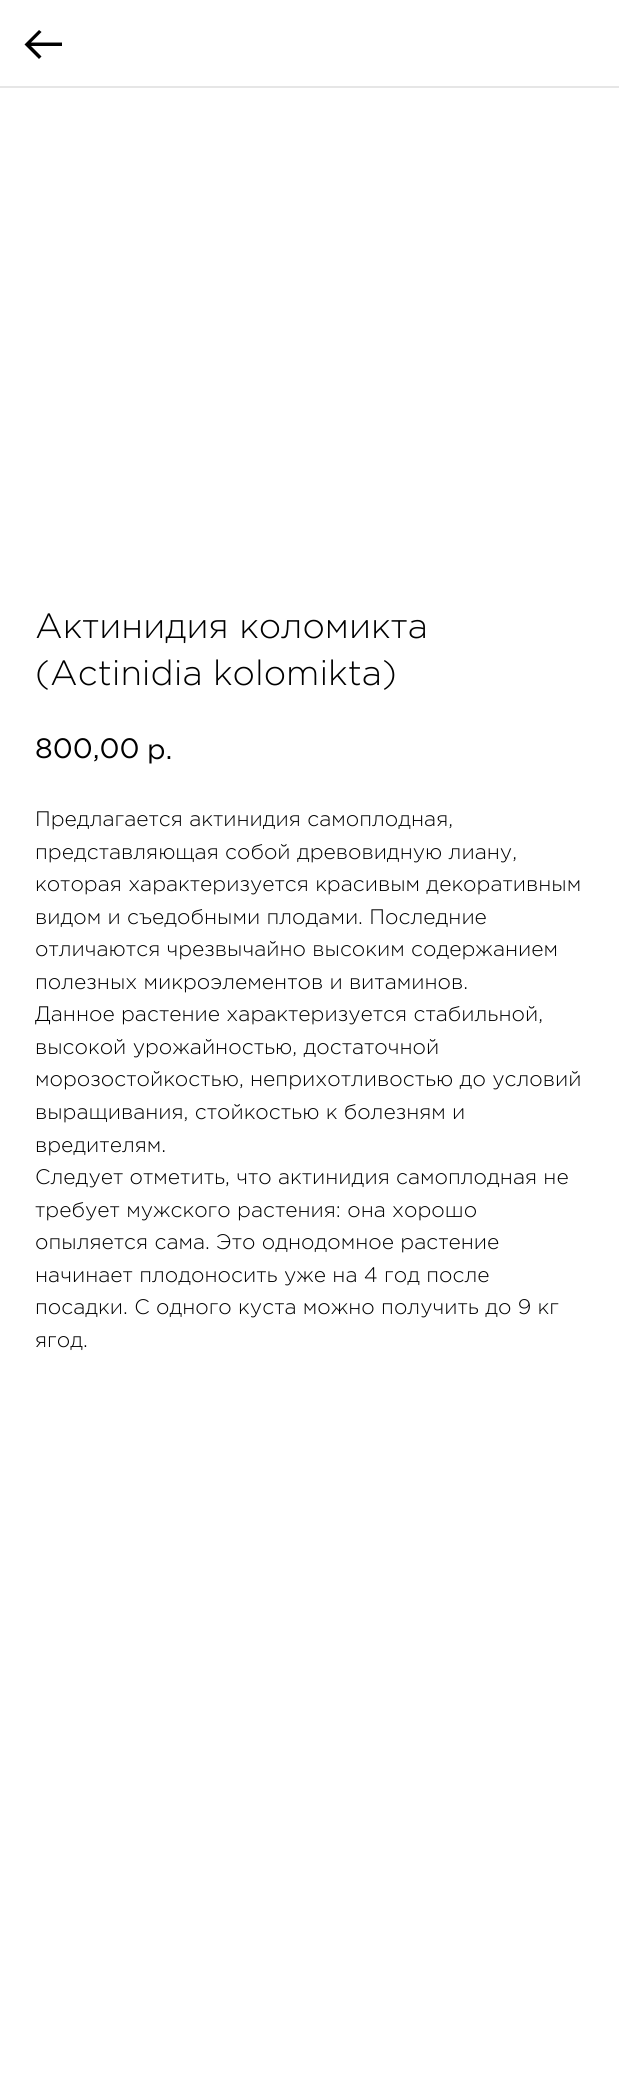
import math
import cairo


def use_color(cr, r, g, b):
  cr.set_source_rgb(r / 255, g / 255, b / 255)

def text(cr, x, y, s, family, size, color, bold=False, italic=False):
  cr.select_font_face(family, cairo.FONT_SLANT_ITALIC if italic else cairo.FONT_SLANT_NORMAL, cairo.FONT_WEIGHT_BOLD if bold else cairo.FONT_WEIGHT_NORMAL)
  cr.set_font_size(size)
  use_color(cr, *color)
  cr.move_to(x, y)
  cr.show_text(s)

def box(cr, x, y, w, h, *color):
  use_color(cr, *color)
  cr.rectangle(x, y, w, h)
  cr.fill()

def draw(cr):
  use_color(cr, 255, 255, 255)
  cr.paint()
  box(cr, 0, 86, 619, 2, 230, 230, 230)
  use_color(cr, 0, 0, 0)
  cr.new_path()
  cr.move_to(39, 30)
  cr.line_to(41.5, 32)
  cr.line_to(31, 42.5)
  cr.line_to(62, 42.5)
  cr.line_to(62, 46)
  cr.line_to(31, 46)
  cr.line_to(41.5, 56.5)
  cr.line_to(39, 59)
  cr.line_to(24.5, 44.5)
  cr.close_path()
  cr.fill()
  text(cr, 35, 638, "Актинидия коломикта", "Gotham Light", 35, (0, 0, 0))
  text(cr, 35, 685, "(Actinidia kolomikta)", "Gotham Light", 35, (0, 0, 0))
  text(cr, 35, 758, "800,00", "Gotham", 28, (0, 0, 0))
  text(cr, 147, 759, "р.", "Gotham", 28, (0, 0, 0))
  text(cr, 35, 826, "Предлагается актинидия самоплодная,", "Gotham Light", 21, (0, 0, 0))
  text(cr, 35, 859, "представляющая собой древовидную лиану,", "Gotham Light", 21, (0, 0, 0))
  text(cr, 35, 891, "которая характеризуется красивым декоративным", "Gotham Light", 21, (0, 0, 0))
  text(cr, 35, 924, "видом и съедобными плодами. Последние", "Gotham Light", 21, (0, 0, 0))
  text(cr, 35, 956, "отличаются чрезвычайно высоким содержанием", "Gotham Light", 21, (0, 0, 0))
  text(cr, 35, 989, "полезных микроэлементов и витаминов.", "Gotham Light", 21, (0, 0, 0))
  text(cr, 35, 1021, "Данное растение характеризуется стабильной,", "Gotham Light", 21, (0, 0, 0))
  text(cr, 35, 1054, "высокой урожайностью, достаточной", "Gotham Light", 21, (0, 0, 0))
  text(cr, 35, 1086, "морозостойкостью, неприхотливостью до условий", "Gotham Light", 21, (0, 0, 0))
  text(cr, 35, 1119, "выращивания, стойкостью к болезням и", "Gotham Light", 21, (0, 0, 0))
  text(cr, 35, 1152, "вредителям.", "Gotham Light", 21, (0, 0, 0))
  text(cr, 35, 1184, "Следует отметить, что актинидия самоплодная не", "Gotham Light", 21, (0, 0, 0))
  text(cr, 35, 1217, "требует мужского растения: она хорошо", "Gotham Light", 21, (0, 0, 0))
  text(cr, 35, 1249, "опыляется сама. Это однодомное растение", "Gotham Light", 21, (0, 0, 0))
  text(cr, 35, 1282, "начинает плодоносить уже на 4 год после", "Gotham Light", 21, (0, 0, 0))
  text(cr, 35, 1314, "посадки. С одного куста можно получить до 9 кг", "Gotham Light", 21, (0, 0, 0))
  text(cr, 35, 1347, "ягод.", "Gotham Light", 21, (0, 0, 0))


surface = cairo.ImageSurface(cairo.FORMAT_RGB24, 619, 2079)
cr = cairo.Context(surface)
options = cairo.FontOptions()
options.set_hint_metrics(cairo.HINT_METRICS_OFF)
options.set_hint_style(cairo.HINT_STYLE_NONE)
cr.set_font_options(options)
cr.set_miter_limit(4)
draw(cr)
surface.write_to_png("out.png")
